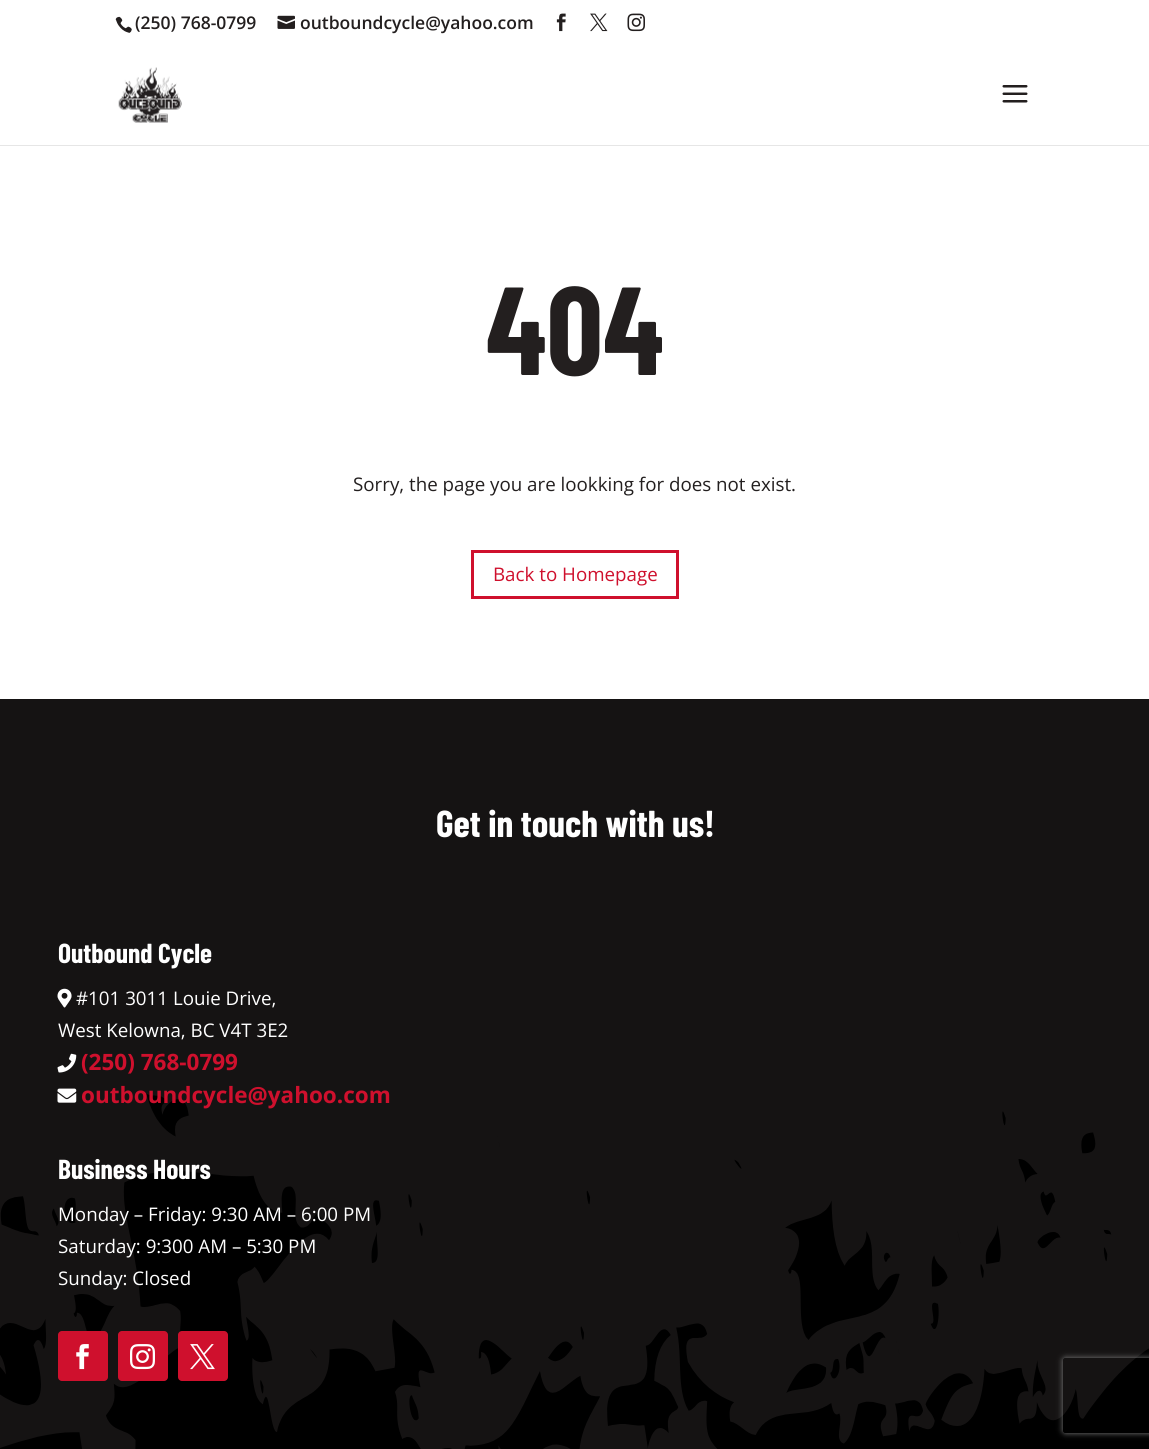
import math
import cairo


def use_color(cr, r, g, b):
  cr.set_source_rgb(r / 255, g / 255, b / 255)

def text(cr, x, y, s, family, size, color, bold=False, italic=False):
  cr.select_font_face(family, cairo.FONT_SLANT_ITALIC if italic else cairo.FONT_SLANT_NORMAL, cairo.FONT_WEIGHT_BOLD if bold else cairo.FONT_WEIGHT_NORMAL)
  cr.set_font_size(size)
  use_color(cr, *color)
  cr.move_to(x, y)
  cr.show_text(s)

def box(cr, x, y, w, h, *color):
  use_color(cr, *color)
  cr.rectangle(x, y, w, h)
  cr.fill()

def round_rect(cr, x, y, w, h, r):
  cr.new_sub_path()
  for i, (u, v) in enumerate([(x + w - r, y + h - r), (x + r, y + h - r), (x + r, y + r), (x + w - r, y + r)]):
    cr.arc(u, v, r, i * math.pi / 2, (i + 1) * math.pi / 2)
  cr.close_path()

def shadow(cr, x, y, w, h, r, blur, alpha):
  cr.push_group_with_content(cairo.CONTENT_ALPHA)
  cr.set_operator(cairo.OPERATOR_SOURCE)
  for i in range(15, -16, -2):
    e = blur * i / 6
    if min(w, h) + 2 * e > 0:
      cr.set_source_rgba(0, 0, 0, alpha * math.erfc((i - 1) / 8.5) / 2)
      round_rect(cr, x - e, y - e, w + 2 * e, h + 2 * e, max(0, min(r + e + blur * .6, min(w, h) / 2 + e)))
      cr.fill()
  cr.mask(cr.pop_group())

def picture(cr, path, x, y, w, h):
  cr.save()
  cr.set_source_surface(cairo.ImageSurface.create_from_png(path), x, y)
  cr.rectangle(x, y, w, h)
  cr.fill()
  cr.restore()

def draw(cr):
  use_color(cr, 255, 255, 255)
  cr.paint()
  picture(cr, "img_01.png", 115, 16, 17, 17)
  picture(cr, "img_02.png", 277, 15, 18, 14)
  picture(cr, "img_03.png", 556, 13, 10, 19)
  picture(cr, "img_04.png", 590, 13, 18, 19)
  picture(cr, "img_05.png", 627, 13, 18, 19)
  box(cr, 0, 145, 1149, 1, 230, 230, 230)
  picture(cr, "img_06.png", 118, 67, 64, 56)
  picture(cr, "img_07.png", 1002, 85, 26, 18)
  cr.rectangle(472.5, 551.5, 205, 46)
  use_color(cr, 207, 16, 45)
  cr.set_line_width(3)
  cr.stroke()
  box(cr, 0, 699, 1149, 750, 21, 19, 19)
  picture(cr, "img_08.png", 0, 1094, 1149, 355)
  picture(cr, "img_09.png", 57, 988, 15, 20)
  picture(cr, "img_10.png", 57, 1053, 20, 20)
  picture(cr, "img_11.png", 57, 1088, 20, 15)
  use_color(cr, 207, 16, 45)
  round_rect(cr, 58, 1331, 50, 50, 4)
  cr.fill()
  picture(cr, "img_12.png", 76, 1344, 13, 26)
  round_rect(cr, 118, 1331, 50, 50, 4)
  cr.fill()
  picture(cr, "img_13.png", 130, 1344, 25, 26)
  round_rect(cr, 178, 1331, 50, 50, 4)
  cr.fill()
  picture(cr, "img_14.png", 190, 1344, 25, 26)
  cr.save()
  cr.set_fill_rule(cairo.FILL_RULE_EVEN_ODD)
  cr.new_path()
  cr.move_to(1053, 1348)
  cr.line_to(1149, 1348)
  cr.line_to(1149, 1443)
  cr.line_to(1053, 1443)
  cr.close_path()
  cr.move_to(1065.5, 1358)
  cr.line_to(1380.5, 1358)
  cr.curve_to(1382, 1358, 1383, 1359, 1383, 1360.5)
  cr.line_to(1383, 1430.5)
  cr.curve_to(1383, 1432, 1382, 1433, 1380.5, 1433)
  cr.line_to(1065.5, 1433)
  cr.curve_to(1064, 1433, 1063, 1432, 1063, 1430.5)
  cr.line_to(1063, 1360.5)
  cr.curve_to(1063, 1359, 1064, 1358, 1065.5, 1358)
  cr.close_path()
  cr.clip()
  use_color(cr, 128, 128, 128)
  shadow(cr, 1063, 1358, 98, 75, 2.5, 3, 1)
  cr.restore()
  text(cr, 135, 29, "(250) 768-0799", "Open Sans SemiBold", 17.5, (35, 31, 31))
  text(cr, 300, 29, "outboundcycle@yahoo.com", "Open Sans SemiBold", 17.5, (35, 31, 31))
  text(cr, 486, 375, "404", "Barlow Condensed", 125, (35, 31, 31), bold=True)
  text(cr, 353, 491, "Sorry, the page you are lookking for does not exist.", "Open Sans", 18.75, (35, 31, 31))
  text(cr, 493, 581, "Back to Homepage", "Open Sans", 18.75, (207, 16, 45))
  text(cr, 436, 837, "Get in touch with us!", "Barlow Condensed", 37.5, (255, 255, 255), bold=True)
  text(cr, 58, 963, "Outbound Cycle", "Barlow Condensed", 27.5, (255, 255, 255), bold=True)
  text(cr, 76, 1005, "#101 3011 Louie Drive,", "Open Sans", 18.75, (255, 255, 255))
  text(cr, 58, 1037, "West Kelowna, BC V4T 3E2", "Open Sans", 18.75, (255, 255, 255))
  text(cr, 81, 1070, "(250) 768-0799", "Open Sans", 22.5, (207, 16, 45), bold=True)
  text(cr, 81, 1103, "outboundcycle@yahoo.com", "Open Sans", 22.5, (207, 16, 45), bold=True)
  text(cr, 58, 1179, "Business Hours", "Barlow Condensed", 27.5, (255, 255, 255), bold=True)
  text(cr, 58, 1221, "Monday – Friday: 9:30 AM – 6:00 PM", "Open Sans", 18.75, (255, 255, 255))
  text(cr, 58, 1253, "Saturday: 9:300 AM – 5:30 PM", "Open Sans", 18.75, (255, 255, 255))
  text(cr, 58, 1285, "Sunday: Closed", "Open Sans", 18.75, (255, 255, 255))


surface = cairo.ImageSurface(cairo.FORMAT_RGB24, 1149, 1449)
cr = cairo.Context(surface)
options = cairo.FontOptions()
options.set_hint_metrics(cairo.HINT_METRICS_OFF)
options.set_hint_style(cairo.HINT_STYLE_NONE)
cr.set_font_options(options)
cr.set_miter_limit(4)
draw(cr)
surface.write_to_png("out.png")
